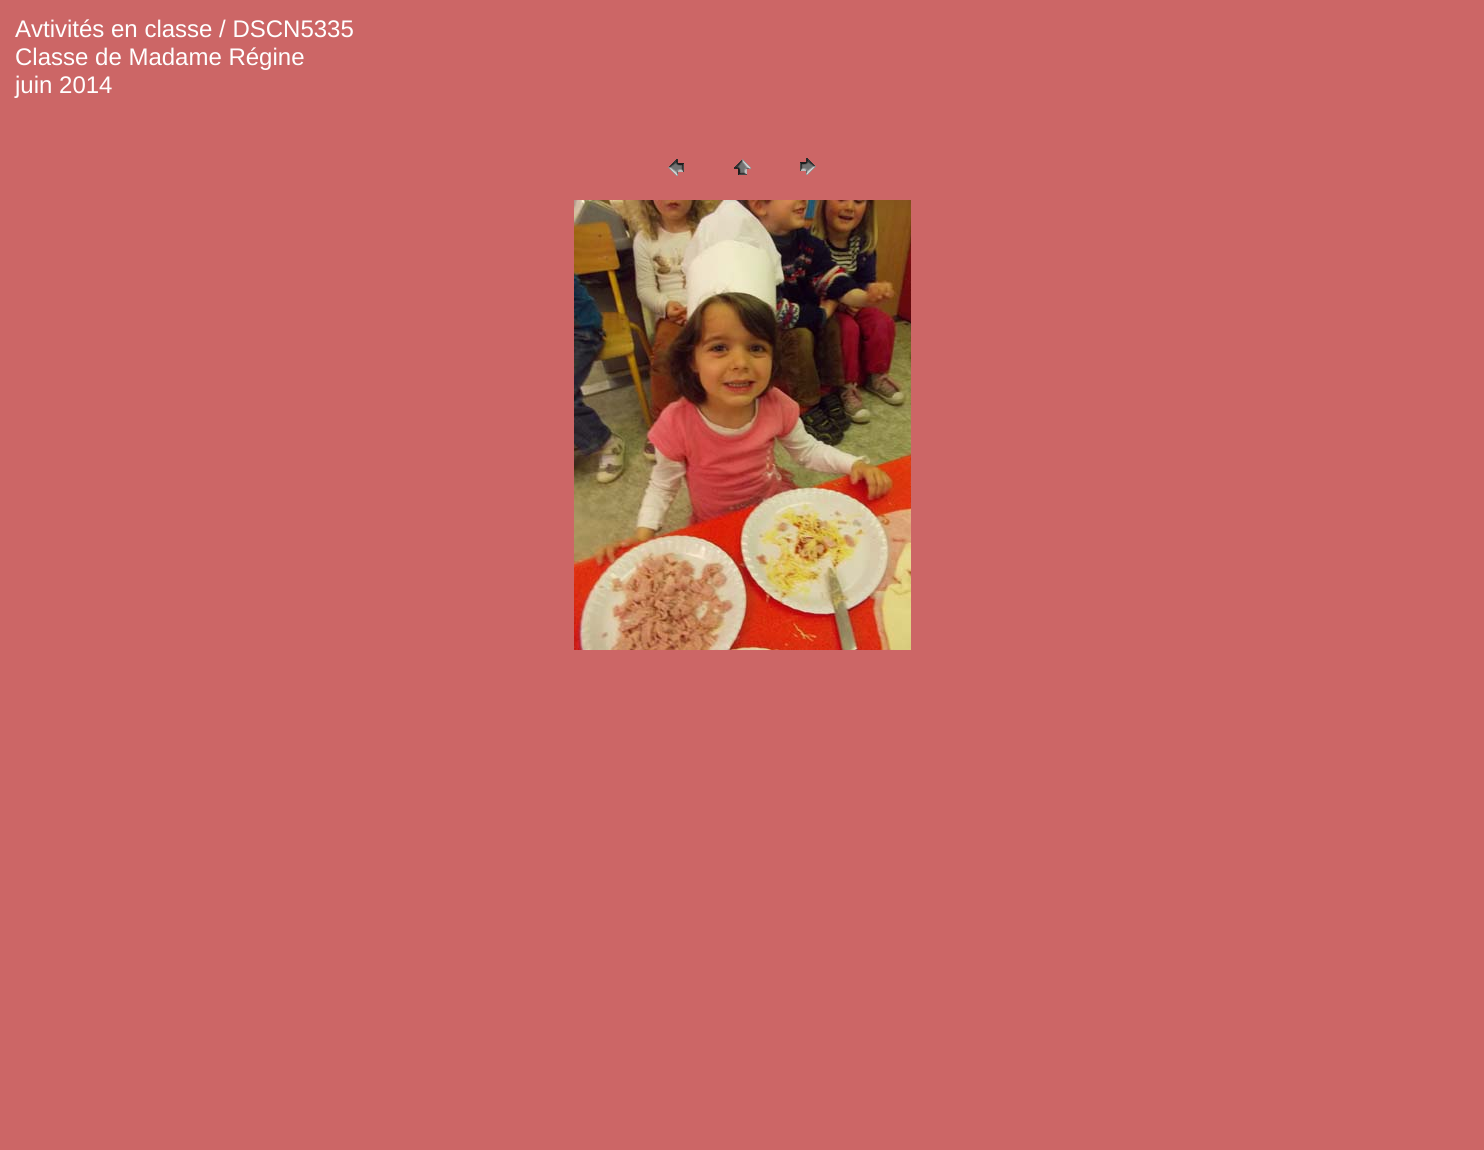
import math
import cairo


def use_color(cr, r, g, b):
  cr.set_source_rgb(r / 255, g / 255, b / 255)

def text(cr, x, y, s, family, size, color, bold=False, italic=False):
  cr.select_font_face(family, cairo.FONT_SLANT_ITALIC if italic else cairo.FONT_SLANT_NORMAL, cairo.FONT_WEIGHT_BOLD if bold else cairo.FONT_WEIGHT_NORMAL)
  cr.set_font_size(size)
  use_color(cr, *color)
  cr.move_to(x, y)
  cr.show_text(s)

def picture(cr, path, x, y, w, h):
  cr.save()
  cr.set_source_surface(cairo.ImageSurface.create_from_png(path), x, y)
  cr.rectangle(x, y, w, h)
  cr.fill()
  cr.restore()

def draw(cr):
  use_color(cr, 204, 102, 102)
  cr.paint()
  picture(cr, "img_01.png", 668, 159, 16, 17)
  picture(cr, "img_02.png", 734, 159, 17, 16)
  picture(cr, "img_03.png", 800, 158, 16, 17)
  picture(cr, "img_04.png", 574, 200, 337, 450)
  text(cr, 15, 37, "Avtivités en classe / DSCN5335", "Liberation Sans", 24, (255, 255, 255))
  text(cr, 15, 65, "Classe de Madame Régine", "Liberation Sans", 24, (255, 255, 255))
  text(cr, 15, 93, "juin 2014", "Liberation Sans", 24, (255, 255, 255))


surface = cairo.ImageSurface(cairo.FORMAT_RGB24, 1484, 1150)
cr = cairo.Context(surface)
options = cairo.FontOptions()
options.set_hint_metrics(cairo.HINT_METRICS_OFF)
options.set_hint_style(cairo.HINT_STYLE_NONE)
cr.set_font_options(options)
cr.set_miter_limit(4)
draw(cr)
surface.write_to_png("out.png")
